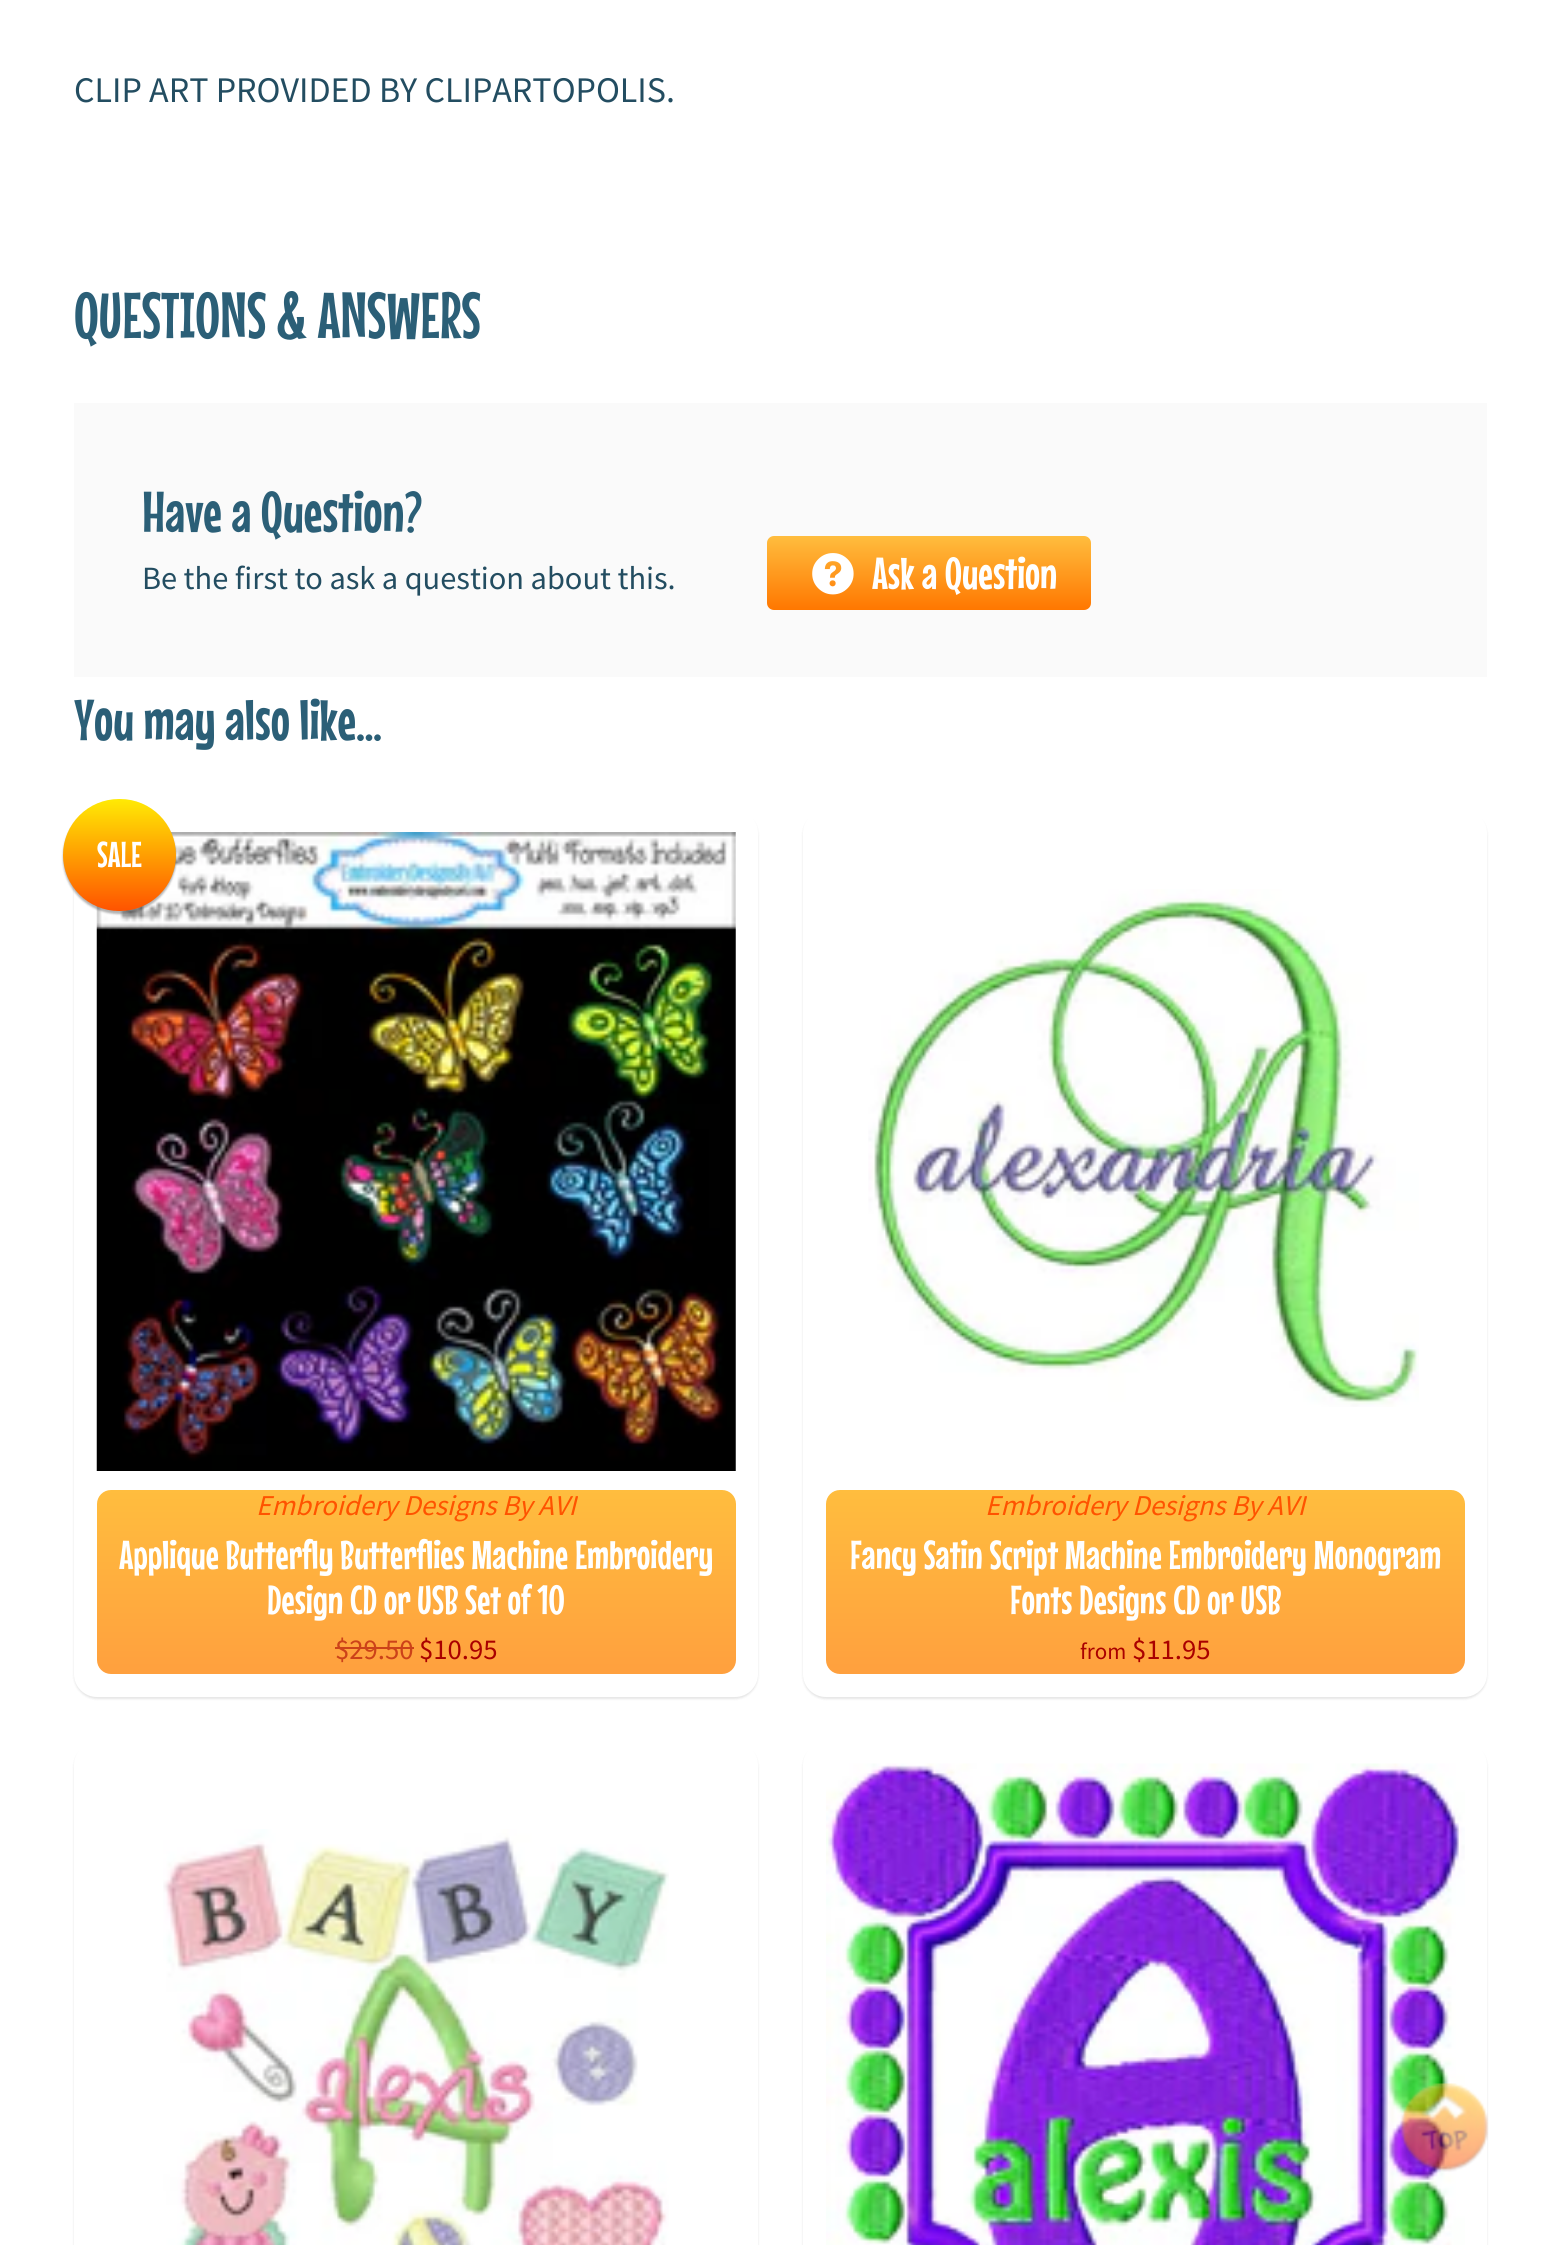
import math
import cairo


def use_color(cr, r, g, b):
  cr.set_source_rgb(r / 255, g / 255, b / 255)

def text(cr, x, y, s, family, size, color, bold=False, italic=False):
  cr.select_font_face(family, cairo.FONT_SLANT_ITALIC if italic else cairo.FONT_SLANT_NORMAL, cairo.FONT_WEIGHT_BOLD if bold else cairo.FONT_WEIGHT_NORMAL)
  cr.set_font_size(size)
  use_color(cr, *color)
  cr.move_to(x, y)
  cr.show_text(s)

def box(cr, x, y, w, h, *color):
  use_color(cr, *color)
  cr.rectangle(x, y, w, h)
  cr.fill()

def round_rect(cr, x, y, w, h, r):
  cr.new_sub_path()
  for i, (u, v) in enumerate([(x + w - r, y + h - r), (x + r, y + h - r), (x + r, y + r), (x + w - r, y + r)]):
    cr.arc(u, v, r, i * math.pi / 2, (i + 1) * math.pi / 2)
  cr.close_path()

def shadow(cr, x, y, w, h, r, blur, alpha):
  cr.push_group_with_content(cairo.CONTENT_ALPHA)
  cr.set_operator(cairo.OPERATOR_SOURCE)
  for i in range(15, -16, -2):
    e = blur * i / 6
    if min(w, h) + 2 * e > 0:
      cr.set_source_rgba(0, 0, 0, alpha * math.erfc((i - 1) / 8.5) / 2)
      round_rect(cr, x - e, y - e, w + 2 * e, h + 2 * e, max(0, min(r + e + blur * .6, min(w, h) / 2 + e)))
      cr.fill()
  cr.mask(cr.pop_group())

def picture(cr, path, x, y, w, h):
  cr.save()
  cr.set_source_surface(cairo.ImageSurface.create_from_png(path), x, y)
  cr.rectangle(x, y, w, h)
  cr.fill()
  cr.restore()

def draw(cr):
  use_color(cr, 255, 255, 255)
  cr.paint()
  box(cr, 74, 403, 1413, 274, 250, 250, 250)
  gradient = cairo.LinearGradient(929, 536, 929, 610)
  gradient.add_color_stop_rgba(0, 1, 0.741, 0.243, 1)
  gradient.add_color_stop_rgba(1, 1, 0.467, 0, 1)
  cr.set_source(gradient)
  round_rect(cr, 767, 536, 324, 74, 7)
  cr.fill()
  picture(cr, "img_01.png", 812, 553, 42, 42)
  use_color(cr, 0, 0, 0)
  shadow(cr, 74, 812, 684, 887, 23, 1, 0.1)
  use_color(cr, 255, 255, 255)
  round_rect(cr, 74, 810, 684, 887, 23)
  cr.fill()
  picture(cr, "img_02.png", 96, 832, 640, 639)
  use_color(cr, 0, 0, 0)
  shadow(cr, 63, 801, 113, 113, 56.5, 1, 0.3)
  gradient = cairo.LinearGradient(119, 799, 119, 911)
  gradient.add_color_stop_rgba(0, 1, 0.918, 0.016, 1)
  gradient.add_color_stop_rgba(1, 1, 0.325, 0, 1)
  cr.set_source(gradient)
  round_rect(cr, 63, 799, 113, 112, 56)
  cr.fill()
  gradient = cairo.LinearGradient(416, 1490, 416, 1674)
  gradient.add_color_stop_rgba(0, 1, 0.741, 0.243, 1)
  gradient.add_color_stop_rgba(1, 1, 0.627, 0.243, 1)
  cr.set_source(gradient)
  round_rect(cr, 97, 1490, 639, 184, 14)
  cr.fill()
  box(cr, 335, 1647, 79, 2, 204, 66, 25)
  use_color(cr, 0, 0, 0)
  shadow(cr, 803, 812, 684, 887, 23, 1, 0.1)
  use_color(cr, 255, 255, 255)
  round_rect(cr, 803, 810, 684, 887, 23)
  cr.fill()
  picture(cr, "img_03.png", 868, 889, 551, 518)
  gradient = cairo.LinearGradient(1145, 1490, 1145, 1674)
  gradient.add_color_stop_rgba(0, 1, 0.741, 0.243, 1)
  gradient.add_color_stop_rgba(1, 1, 0.627, 0.243, 1)
  cr.set_source(gradient)
  round_rect(cr, 826, 1490, 639, 184, 14)
  cr.fill()
  use_color(cr, 0, 0, 0)
  shadow(cr, 74, 1744, 684, 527, 23, 1, 0.1)
  use_color(cr, 255, 255, 255)
  round_rect(cr, 74, 1742, 684, 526, 23)
  cr.fill()
  picture(cr, "img_04.png", 163, 1829, 506, 416)
  use_color(cr, 0, 0, 0)
  shadow(cr, 803, 1744, 684, 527, 23, 1, 0.1)
  use_color(cr, 255, 255, 255)
  round_rect(cr, 803, 1742, 684, 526, 23)
  cr.fill()
  picture(cr, "img_05.png", 826, 1763, 639, 482)
  picture(cr, "img_06.png", 1400, 2083, 89, 89)
  text(cr, 74, 102, "CLIP ART PROVIDED BY CLIPARTOPOLIS.", "Source Sans Pro", 36, (35, 77, 97))
  text(cr, 74, 338, "QUESTIONS & ANSWERS", "Mouse Memoirs", 64.75, (43, 95, 119))
  text(cr, 142, 532, "Have a Question?", "Mouse Memoirs", 57.5, (43, 95, 119))
  text(cr, 142, 589, "Be the first to ask a question about this.", "Source Sans Pro", 32.4, (35, 77, 97))
  text(cr, 872, 589, "Ask a Question", "Mouse Memoirs", 45, (255, 255, 255))
  text(cr, 74, 740, "You may also like...", "Mouse Memoirs", 57.5, (43, 95, 119))
  text(cr, 97, 867, "SALE", "Mouse Memoirs", 36, (255, 255, 255))
  text(cr, 256, 1515, "Embroidery Designs By AVI", "Source Sans Pro", 28.75, (255, 83, 0), italic=True)
  text(cr, 119, 1569, "Applique Butterfly Butterflies Machine Embroidery", "Mouse Memoirs", 40.5, (255, 255, 255))
  text(cr, 267, 1614, "Design CD or USB Set of 10", "Mouse Memoirs", 40.5, (255, 255, 255))
  text(cr, 335, 1659, "$29.50", "Source Sans Pro", 28.75, (204, 66, 25))
  text(cr, 419, 1659, "$10.95", "Source Sans Pro", 28.75, (170, 0, 0))
  text(cr, 985, 1515, "Embroidery Designs By AVI", "Source Sans Pro", 28.75, (255, 83, 0), italic=True)
  text(cr, 850, 1569, "Fancy Satin Script Machine Embroidery Monogram", "Mouse Memoirs", 40.5, (255, 255, 255))
  text(cr, 1010, 1614, "Fonts Designs CD or USB", "Mouse Memoirs", 40.5, (255, 255, 255))
  text(cr, 1080, 1659, "from", "Source Sans Pro", 23, (170, 0, 0))
  text(cr, 1132, 1659, "$11.95", "Source Sans Pro", 28.75, (170, 0, 0))


surface = cairo.ImageSurface(cairo.FORMAT_RGB24, 1560, 2245)
cr = cairo.Context(surface)
options = cairo.FontOptions()
options.set_hint_metrics(cairo.HINT_METRICS_OFF)
options.set_hint_style(cairo.HINT_STYLE_NONE)
cr.set_font_options(options)
cr.set_miter_limit(4)
draw(cr)
surface.write_to_png("out.png")
